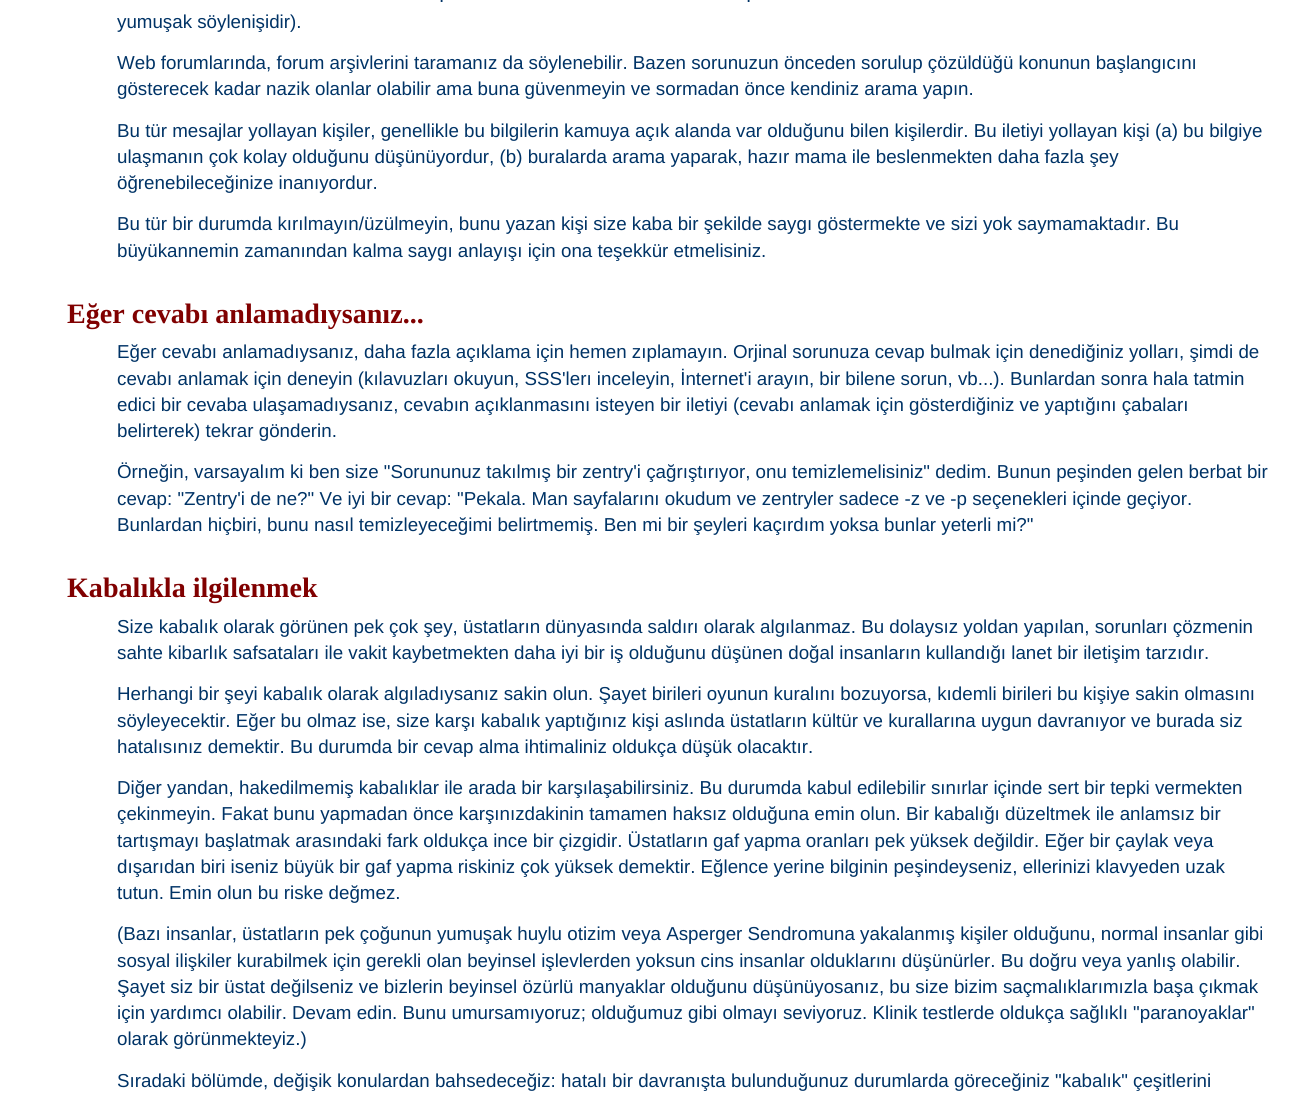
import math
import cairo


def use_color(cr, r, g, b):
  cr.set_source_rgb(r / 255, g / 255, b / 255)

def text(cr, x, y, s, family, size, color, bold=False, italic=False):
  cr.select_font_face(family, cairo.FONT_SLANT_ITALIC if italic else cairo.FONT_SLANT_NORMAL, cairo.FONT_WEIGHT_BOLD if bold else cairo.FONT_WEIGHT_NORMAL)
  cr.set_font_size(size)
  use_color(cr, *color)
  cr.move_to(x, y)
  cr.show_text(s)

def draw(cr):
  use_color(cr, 255, 255, 255)
  cr.paint()
  text(cr, 439, 2, ".", "Liberation Sans", 18.75, (0, 51, 102))
  text(cr, 746, 2, ".", "Liberation Sans", 18.75, (0, 51, 102))
  text(cr, 117, 28, "yumuşak söylenişidir).", "Liberation Sans", 18.75, (0, 51, 102))
  text(cr, 117, 69, "Web forumlarında, forum arşivlerini taramanız da söylenebilir. Bazen sorunuzun önceden sorulup çözüldüğü konunun başlangıcını", "Liberation Sans", 18.75, (0, 51, 102))
  text(cr, 117, 95, "gösterecek kadar nazik olanlar olabilir ama buna güvenmeyin ve sormadan önce kendiniz arama yapın.", "Liberation Sans", 18.75, (0, 51, 102))
  text(cr, 117, 137, "Bu tür mesajlar yollayan kişiler, genellikle bu bilgilerin kamuya açık alanda var olduğunu bilen kişilerdir. Bu iletiyi yollayan kişi (a) bu bilgiye", "Liberation Sans", 18.75, (0, 51, 102))
  text(cr, 117, 163, "ulaşmanın çok kolay olduğunu düşünüyordur, (b) buralarda arama yaparak, hazır mama ile beslenmekten daha fazla şey", "Liberation Sans", 18.75, (0, 51, 102))
  text(cr, 117, 189, "öğrenebileceğinize inanıyordur.", "Liberation Sans", 18.75, (0, 51, 102))
  text(cr, 117, 230, "Bu tür bir durumda kırılmayın/üzülmeyin, bunu yazan kişi size kaba bir şekilde saygı göstermekte ve sizi yok saymamaktadır. Bu", "Liberation Sans", 18.75, (0, 51, 102))
  text(cr, 117, 257, "büyükannemin zamanından kalma saygı anlayışı için ona teşekkür etmelisiniz.", "Liberation Sans", 18.75, (0, 51, 102))
  text(cr, 67, 323, "Eğer cevabı anlamadıysanız...", "Liberation Serif", 28.1, (128, 0, 0), bold=True)
  text(cr, 117, 358, "Eğer cevabı anlamadıysanız, daha fazla açıklama için hemen zıplamayın. Orjinal sorunuza cevap bulmak için denediğiniz yolları, şimdi de", "Liberation Sans", 18.75, (0, 51, 102))
  text(cr, 117, 385, "cevabı anlamak için deneyin (kılavuzları okuyun, SSS'lerı inceleyin, İnternet'i arayın, bir bilene sorun, vb...). Bunlardan sonra hala tatmin", "Liberation Sans", 18.75, (0, 51, 102))
  text(cr, 117, 411, "edici bir cevaba ulaşamadıysanız, cevabın açıklanmasını isteyen bir iletiyi (cevabı anlamak için gösterdiğiniz ve yaptığını çabaları", "Liberation Sans", 18.75, (0, 51, 102))
  text(cr, 117, 437, "belirterek) tekrar gönderin.", "Liberation Sans", 18.75, (0, 51, 102))
  text(cr, 117, 478, "Örneğin, varsayalım ki ben size \"Sorununuz takılmış bir zentry'i çağrıştırıyor, onu temizlemelisiniz\" dedim. Bunun peşinden gelen berbat bir", "Liberation Sans", 18.75, (0, 51, 102))
  text(cr, 117, 505, "cevap: \"Zentry'i de ne?\" Ve iyi bir cevap: \"Pekala. Man sayfalarını okudum ve zentryler sadece -z ve -p seçenekleri içinde geçiyor.", "Liberation Sans", 18.75, (0, 51, 102))
  text(cr, 117, 531, "Bunlardan hiçbiri, bunu nasıl temizleyeceğimi belirtmemiş. Ben mi bir şeyleri kaçırdım yoksa bunlar yeterli mi?\"", "Liberation Sans", 18.75, (0, 51, 102))
  text(cr, 67, 597, "Kabalıkla ilgilenmek", "Liberation Serif", 28.1, (128, 0, 0), bold=True)
  text(cr, 117, 633, "Size kabalık olarak görünen pek çok şey, üstatların dünyasında saldırı olarak algılanmaz. Bu dolaysız yoldan yapılan, sorunları çözmenin", "Liberation Sans", 18.75, (0, 51, 102))
  text(cr, 117, 659, "sahte kibarlık safsataları ile vakit kaybetmekten daha iyi bir iş olduğunu düşünen doğal insanların kullandığı lanet bir iletişim tarzıdır.", "Liberation Sans", 18.75, (0, 51, 102))
  text(cr, 117, 700, "Herhangi bir şeyi kabalık olarak algıladıysanız sakin olun. Şayet birileri oyunun kuralını bozuyorsa, kıdemli birileri bu kişiye sakin olmasını", "Liberation Sans", 18.75, (0, 51, 102))
  text(cr, 117, 727, "söyleyecektir. Eğer bu olmaz ise, size karşı kabalık yaptığınız kişi aslında üstatların kültür ve kurallarına uygun davranıyor ve burada siz", "Liberation Sans", 18.75, (0, 51, 102))
  text(cr, 117, 753, "hatalısınız demektir. Bu durumda bir cevap alma ihtimaliniz oldukça düşük olacaktır.", "Liberation Sans", 18.75, (0, 51, 102))
  text(cr, 117, 794, "Diğer yandan, hakedilmemiş kabalıklar ile arada bir karşılaşabilirsiniz. Bu durumda kabul edilebilir sınırlar içinde sert bir tepki vermekten", "Liberation Sans", 18.75, (0, 51, 102))
  text(cr, 117, 820, "çekinmeyin. Fakat bunu yapmadan önce karşınızdakinin tamamen haksız olduğuna emin olun. Bir kabalığı düzeltmek ile anlamsız bir", "Liberation Sans", 18.75, (0, 51, 102))
  text(cr, 117, 847, "tartışmayı başlatmak arasındaki fark oldukça ince bir çizgidir. Üstatların gaf yapma oranları pek yüksek değildir. Eğer bir çaylak veya", "Liberation Sans", 18.75, (0, 51, 102))
  text(cr, 117, 873, "dışarıdan biri iseniz büyük bir gaf yapma riskiniz çok yüksek demektir. Eğlence yerine bilginin peşindeyseniz, ellerinizi klavyeden uzak", "Liberation Sans", 18.75, (0, 51, 102))
  text(cr, 117, 899, "tutun. Emin olun bu riske değmez.", "Liberation Sans", 18.75, (0, 51, 102))
  text(cr, 117, 940, "(Bazı insanlar, üstatların pek çoğunun yumuşak huylu otizim veya Asperger Sendromuna yakalanmış kişiler olduğunu, normal insanlar gibi", "Liberation Sans", 18.75, (0, 51, 102))
  text(cr, 117, 967, "sosyal ilişkiler kurabilmek için gerekli olan beyinsel işlevlerden yoksun cins insanlar olduklarını düşünürler. Bu doğru veya yanlış olabilir.", "Liberation Sans", 18.75, (0, 51, 102))
  text(cr, 117, 993, "Şayet siz bir üstat değilseniz ve bizlerin beyinsel özürlü manyaklar olduğunu düşünüyosanız, bu size bizim saçmalıklarımızla başa çıkmak", "Liberation Sans", 18.75, (0, 51, 102))
  text(cr, 117, 1019, "için yardımcı olabilir. Devam edin. Bunu umursamıyoruz; olduğumuz gibi olmayı seviyoruz. Klinik testlerde oldukça sağlıklı \"paranoyaklar\"", "Liberation Sans", 18.75, (0, 51, 102))
  text(cr, 117, 1045, "olarak görünmekteyiz.)", "Liberation Sans", 18.75, (0, 51, 102))
  text(cr, 117, 1087, "Sıradaki bölümde, değişik konulardan bahsedeceğiz: hatalı bir davranışta bulunduğunuz durumlarda göreceğiniz \"kabalık\" çeşitlerini", "Liberation Sans", 18.75, (0, 51, 102))


surface = cairo.ImageSurface(cairo.FORMAT_RGB24, 1290, 1102)
cr = cairo.Context(surface)
options = cairo.FontOptions()
options.set_hint_metrics(cairo.HINT_METRICS_OFF)
options.set_hint_style(cairo.HINT_STYLE_NONE)
cr.set_font_options(options)
cr.set_miter_limit(4)
draw(cr)
surface.write_to_png("out.png")
